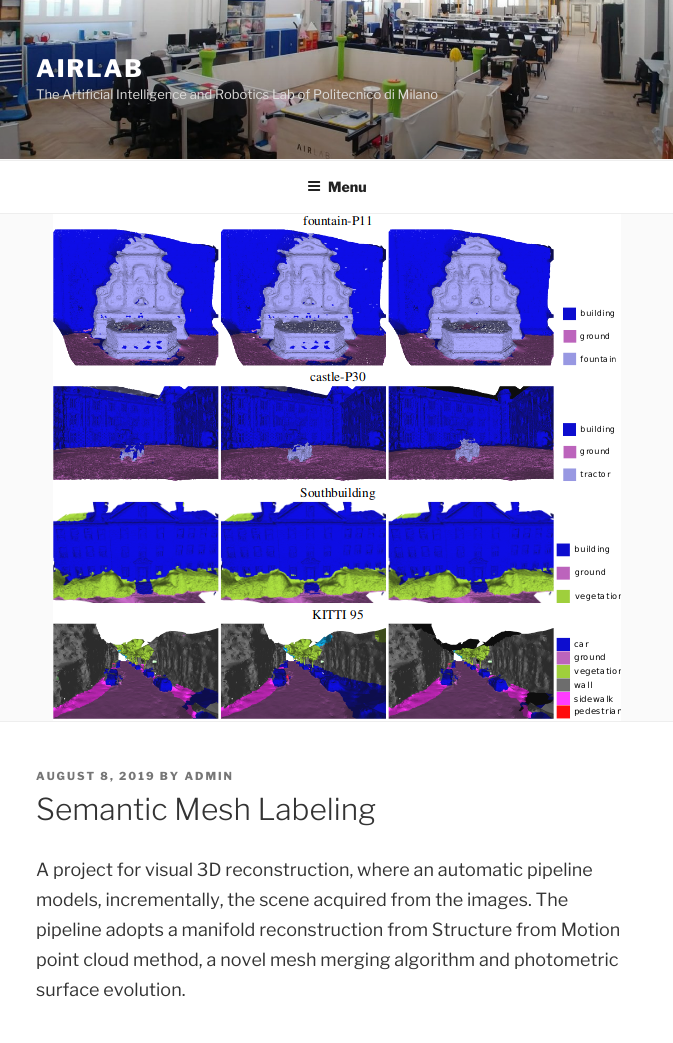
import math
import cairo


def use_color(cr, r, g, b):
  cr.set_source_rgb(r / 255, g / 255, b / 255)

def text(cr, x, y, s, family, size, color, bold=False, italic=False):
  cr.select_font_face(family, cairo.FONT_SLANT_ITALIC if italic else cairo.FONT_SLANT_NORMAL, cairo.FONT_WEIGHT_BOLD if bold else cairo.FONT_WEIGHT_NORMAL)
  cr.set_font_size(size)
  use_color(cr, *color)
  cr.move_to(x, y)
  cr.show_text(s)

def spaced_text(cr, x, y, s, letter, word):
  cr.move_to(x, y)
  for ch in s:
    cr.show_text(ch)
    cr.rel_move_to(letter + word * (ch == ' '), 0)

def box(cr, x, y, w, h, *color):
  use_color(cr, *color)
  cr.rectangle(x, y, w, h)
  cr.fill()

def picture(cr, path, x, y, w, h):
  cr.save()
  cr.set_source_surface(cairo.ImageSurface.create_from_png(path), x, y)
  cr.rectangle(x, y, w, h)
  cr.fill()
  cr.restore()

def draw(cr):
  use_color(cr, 255, 255, 255)
  cr.paint()
  box(cr, 0, 159, 673, 1, 250, 250, 250)
  picture(cr, "img_01.png", 0, 0, 673, 159)
  box(cr, 0, 160, 673, 1, 238, 238, 238)
  box(cr, 0, 213, 673, 1, 238, 238, 238)
  picture(cr, "img_02.png", 308, 181, 13, 10)
  box(cr, 0, 214, 673, 507, 250, 250, 250)
  box(cr, 0, 721, 673, 1, 238, 238, 238)
  picture(cr, "img_03.png", 53, 214, 568, 507)
  cr.select_font_face("Libre Franklin Thin")
  cr.set_font_size(24)
  use_color(cr, 255, 255, 255)
  spaced_text(cr, 36, 77, "AIRLAB", 2, 0)
  text(cr, 36, 99, "The Artificial Intelligence and Robotics Lab of Politecnico di Milano", "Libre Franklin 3 Thin", 13, (222, 221, 219))
  text(cr, 328, 192, "Menu", "Libre Franklin Thin", 14, (34, 34, 34))
  cr.set_font_size(11)
  use_color(cr, 118, 118, 118)
  spaced_text(cr, 36, 780, "AUGUST 8, 2019 BY ADMIN", 2, 0)
  text(cr, 36, 820, "Semantic Mesh Labeling", "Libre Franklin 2 Thin", 30, (51, 51, 51))
  text(cr, 36, 876, "A project for visual 3D reconstruction, where an automatic pipeline", "Libre Franklin 3 Thin", 18, (51, 51, 51))
  text(cr, 36, 906, "models, incrementally, the scene acquired from the images. The", "Libre Franklin 3 Thin", 18, (51, 51, 51))
  text(cr, 36, 936, "pipeline adopts a manifold reconstruction from Structure from Motion", "Libre Franklin 3 Thin", 18, (51, 51, 51))
  text(cr, 36, 966, "point cloud method, a novel mesh merging algorithm and photometric", "Libre Franklin 3 Thin", 18, (51, 51, 51))
  text(cr, 36, 996, "surface evolution.", "Libre Franklin 3 Thin", 18, (51, 51, 51))


surface = cairo.ImageSurface(cairo.FORMAT_RGB24, 673, 1043)
cr = cairo.Context(surface)
options = cairo.FontOptions()
options.set_hint_metrics(cairo.HINT_METRICS_OFF)
options.set_hint_style(cairo.HINT_STYLE_NONE)
cr.set_font_options(options)
cr.set_miter_limit(4)
draw(cr)
surface.write_to_png("out.png")
